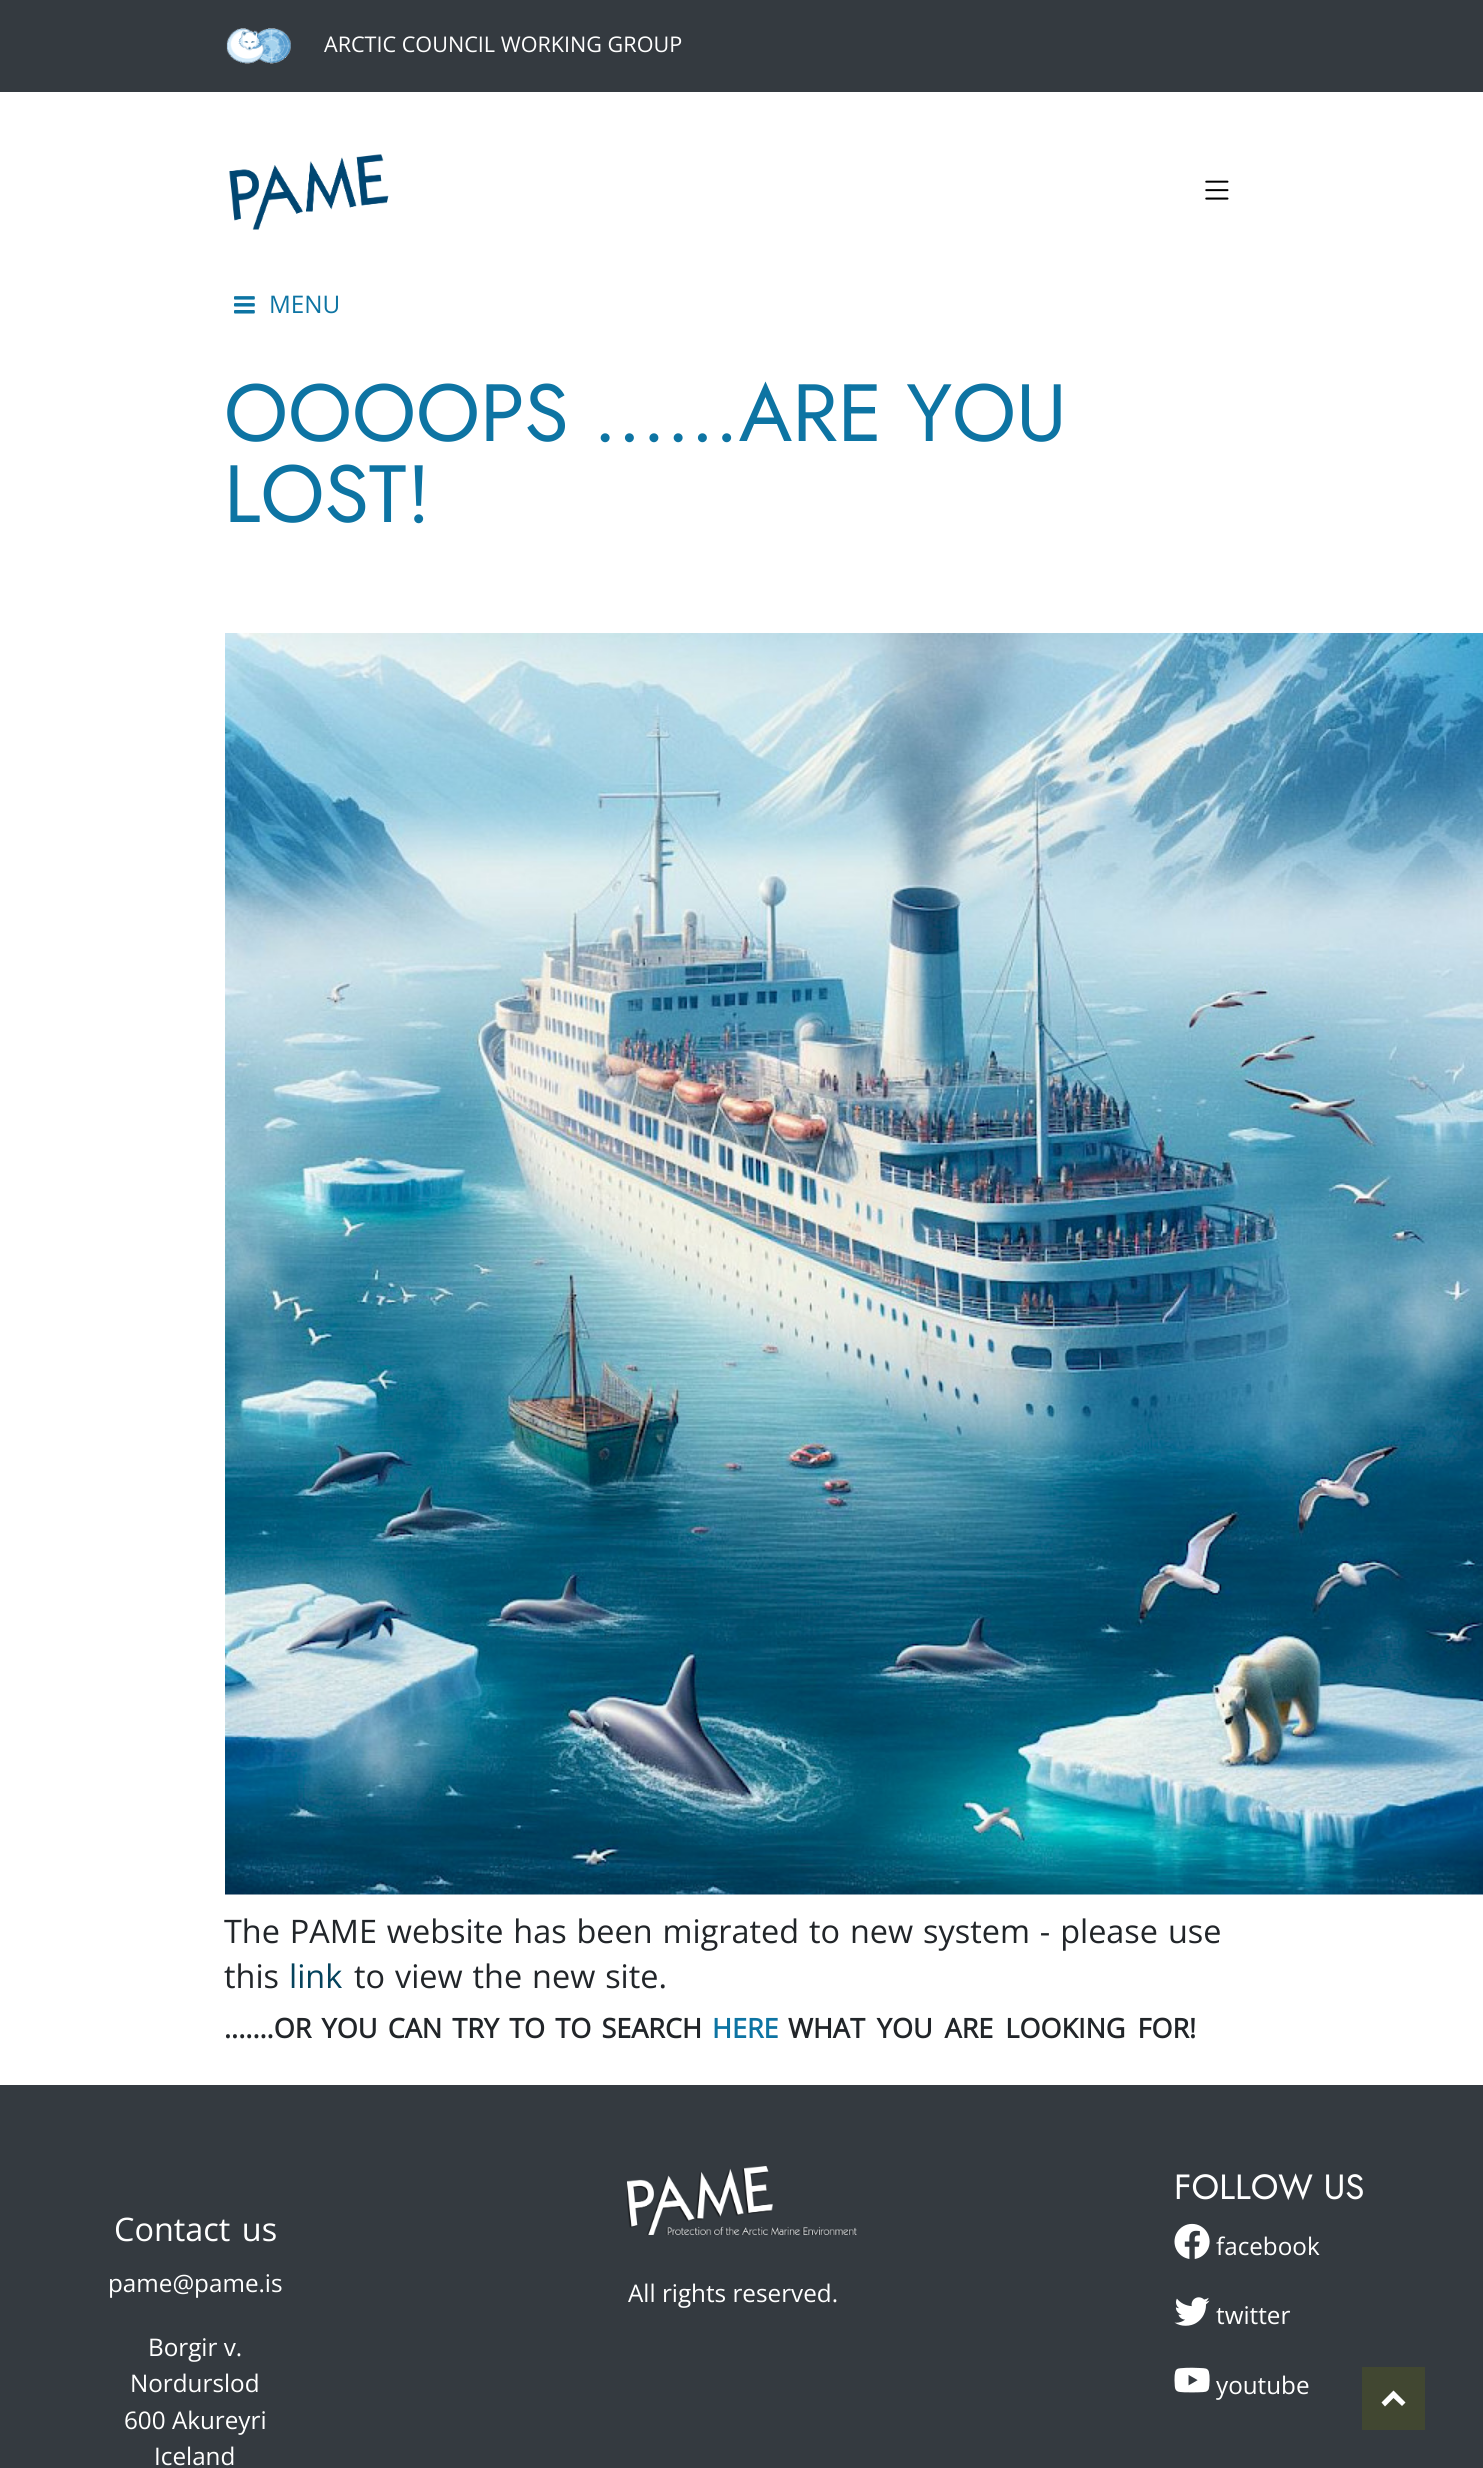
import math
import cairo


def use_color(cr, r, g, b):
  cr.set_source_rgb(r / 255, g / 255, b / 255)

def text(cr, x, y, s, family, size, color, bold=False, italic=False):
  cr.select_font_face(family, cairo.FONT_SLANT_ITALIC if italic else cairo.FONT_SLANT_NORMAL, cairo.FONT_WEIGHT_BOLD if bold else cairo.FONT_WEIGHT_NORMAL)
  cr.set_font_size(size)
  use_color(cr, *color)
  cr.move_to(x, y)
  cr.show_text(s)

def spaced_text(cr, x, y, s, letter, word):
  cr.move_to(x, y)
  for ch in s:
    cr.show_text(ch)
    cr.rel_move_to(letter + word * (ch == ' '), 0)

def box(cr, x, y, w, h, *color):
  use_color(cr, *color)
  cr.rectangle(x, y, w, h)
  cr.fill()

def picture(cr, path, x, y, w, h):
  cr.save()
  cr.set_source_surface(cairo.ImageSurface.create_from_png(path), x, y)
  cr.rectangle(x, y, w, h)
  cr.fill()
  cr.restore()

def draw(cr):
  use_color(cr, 255, 255, 255)
  cr.paint()
  box(cr, 0, 0, 1483, 92, 52, 58, 64)
  picture(cr, "img_01.png", 226, 28, 65, 36)
  picture(cr, "img_02.png", 229, 154, 160, 76)
  picture(cr, "img_03.png", 1205, 180, 24, 20)
  picture(cr, "img_04.png", 234, 296, 21, 18)
  picture(cr, "img_05.png", 225, 633, 1258, 1262)
  box(cr, 0, 2085, 1483, 383, 52, 58, 64)
  picture(cr, "img_06.png", 627, 2166, 230, 69)
  picture(cr, "img_07.png", 1174, 2223, 36, 36)
  picture(cr, "img_08.png", 1174, 2297, 36, 29)
  picture(cr, "img_09.png", 1174, 2367, 36, 26)
  box(cr, 1362, 2367, 63, 63, 65, 71, 49)
  use_color(cr, 255, 255, 255)
  cr.new_path()
  cr.move_to(1393.5, 2390.5)
  cr.line_to(1405.5, 2402.5)
  cr.line_to(1402, 2406)
  cr.line_to(1393.5, 2398)
  cr.line_to(1385, 2406.5)
  cr.line_to(1381.5, 2402.5)
  cr.close_path()
  cr.fill()
  text(cr, 324, 52, "ARCTIC COUNCIL WORKING GROUP", "Open Sans", 21.6, (255, 255, 255))
  text(cr, 269, 313, "MENU", "Open Sans", 24.25, (13, 116, 163))
  text(cr, 224, 441, "OOOOPS ......ARE YOU", "Jost", 81, (13, 116, 163))
  text(cr, 224, 522, "LOST!", "Jost", 81, (13, 116, 163))
  cr.select_font_face("Open Sans")
  cr.set_font_size(32.4)
  use_color(cr, 33, 37, 41)
  spaced_text(cr, 224, 1943, "The PAME website has been migrated to new system - please use", 0, 1.5)
  text(cr, 224, 1988, "this", "Open Sans", 32.4, (33, 37, 41))
  text(cr, 289, 1988, "link", "Open Sans", 32.4, (4, 66, 92))
  use_color(cr, 33, 37, 41)
  spaced_text(cr, 354, 1988, "to view the new site.", 0, 1.5)
  cr.select_font_face("Open Sans", cairo.FONT_SLANT_NORMAL, cairo.FONT_WEIGHT_BOLD)
  cr.set_font_size(27)
  spaced_text(cr, 224, 2038, ".......OR YOU CAN TRY TO TO SEARCH", 0, 3.25)
  text(cr, 712, 2038, "HERE", "Open Sans", 27, (13, 116, 163), bold=True)
  use_color(cr, 33, 37, 41)
  spaced_text(cr, 788, 2038, "WHAT YOU ARE LOOKING FOR!", 0, 5)
  cr.select_font_face("Open Sans")
  cr.set_font_size(32.4)
  use_color(cr, 255, 255, 255)
  spaced_text(cr, 114, 2241, "Contact us", 0, 3)
  text(cr, 108, 2292, "pame@pame.is", "Open Sans", 24.25, (255, 255, 255))
  text(cr, 148, 2356, "Borgir v.", "Open Sans", 24.25, (255, 255, 255))
  text(cr, 130, 2392, "Nordurslod", "Open Sans", 24.25, (255, 255, 255))
  text(cr, 124, 2429, "600 Akureyri", "Open Sans", 24.25, (255, 255, 255))
  text(cr, 154, 2465, "Iceland", "Open Sans", 24.25, (255, 255, 255))
  text(cr, 628, 2302, "All rights reserved.", "Open Sans", 24.25, (255, 255, 255))
  text(cr, 1174, 2199, "FOLLOW US", "Jost", 35, (255, 255, 255))
  text(cr, 1216, 2255, "facebook", "Open Sans", 24.25, (255, 255, 255))
  text(cr, 1216, 2324, "twitter", "Open Sans", 24.25, (255, 255, 255))
  text(cr, 1216, 2394, "youtube", "Open Sans", 24.25, (255, 255, 255))


surface = cairo.ImageSurface(cairo.FORMAT_RGB24, 1483, 2468)
cr = cairo.Context(surface)
options = cairo.FontOptions()
options.set_hint_metrics(cairo.HINT_METRICS_OFF)
options.set_hint_style(cairo.HINT_STYLE_NONE)
cr.set_font_options(options)
cr.set_miter_limit(4)
draw(cr)
surface.write_to_png("out.png")
